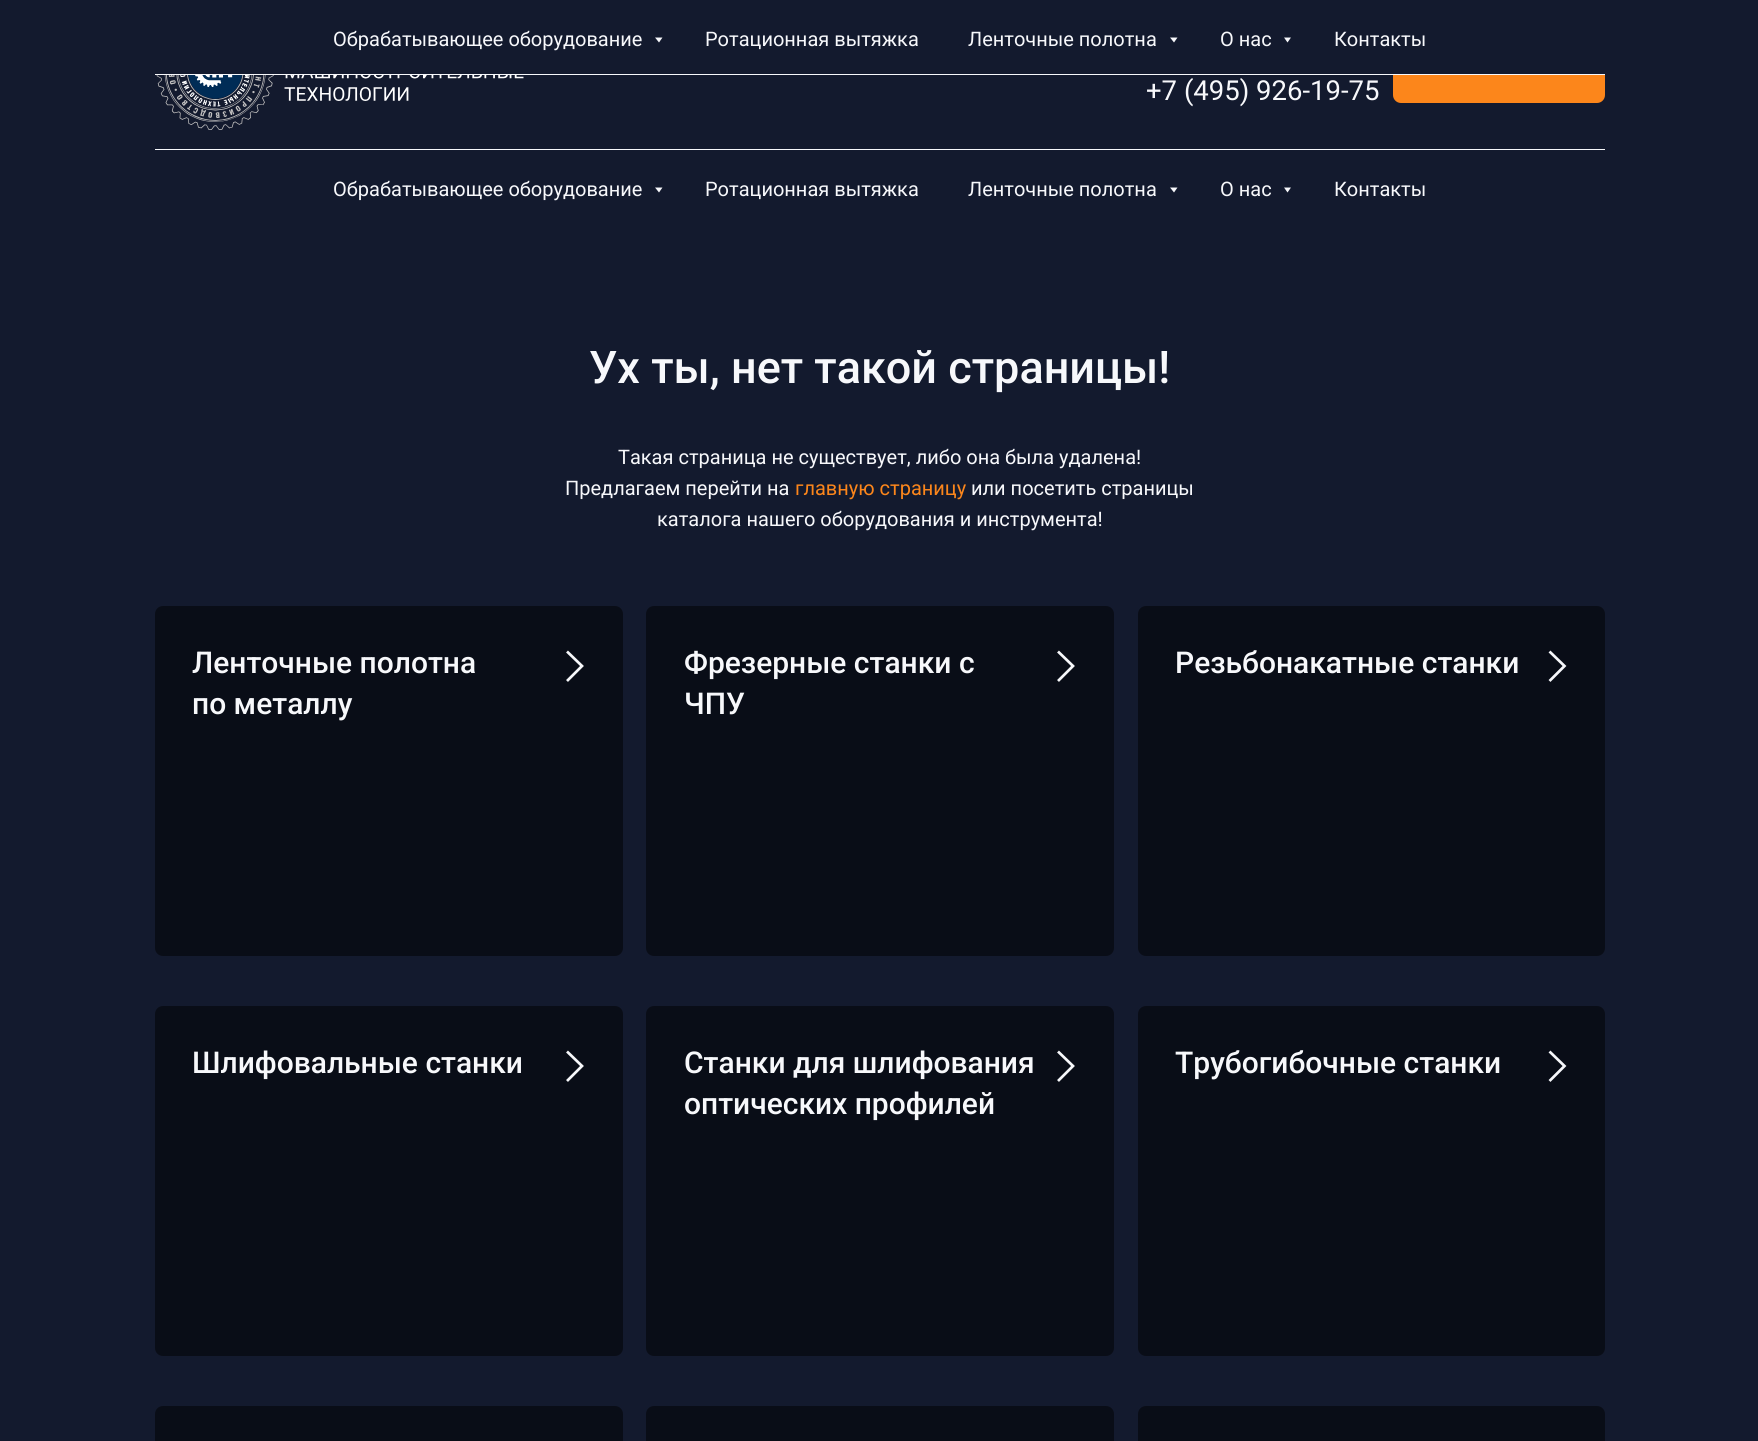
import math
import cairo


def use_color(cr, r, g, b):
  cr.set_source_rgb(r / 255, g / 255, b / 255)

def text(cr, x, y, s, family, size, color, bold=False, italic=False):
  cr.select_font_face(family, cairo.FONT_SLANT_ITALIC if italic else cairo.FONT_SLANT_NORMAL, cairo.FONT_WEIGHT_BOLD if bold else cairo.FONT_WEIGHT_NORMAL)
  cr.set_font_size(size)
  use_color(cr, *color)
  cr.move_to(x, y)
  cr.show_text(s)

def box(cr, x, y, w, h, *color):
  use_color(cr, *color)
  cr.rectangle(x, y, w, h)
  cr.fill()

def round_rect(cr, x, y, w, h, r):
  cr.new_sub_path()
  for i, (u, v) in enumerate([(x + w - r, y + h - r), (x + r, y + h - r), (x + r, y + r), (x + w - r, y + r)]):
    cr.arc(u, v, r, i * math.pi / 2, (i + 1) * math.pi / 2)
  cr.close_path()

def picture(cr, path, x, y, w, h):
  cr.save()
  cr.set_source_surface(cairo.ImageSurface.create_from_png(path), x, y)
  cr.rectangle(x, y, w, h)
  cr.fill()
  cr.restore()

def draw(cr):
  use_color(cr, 19, 26, 46)
  cr.paint()
  use_color(cr, 252, 134, 27)
  round_rect(cr, 1393, 48, 212, 55, 8)
  cr.fill()
  box(cr, 1393, 48, 212, 27, 19, 26, 46)
  use_color(cr, 247, 248, 251)
  cr.new_path()
  cr.move_to(655, 37.5)
  cr.line_to(662.5, 37.5)
  cr.line_to(659, 42.5)
  cr.close_path()
  cr.fill()
  cr.new_path()
  cr.move_to(1170, 37.5)
  cr.line_to(1177.5, 37.5)
  cr.line_to(1174, 42.5)
  cr.close_path()
  cr.fill()
  cr.new_path()
  cr.move_to(1284, 37.5)
  cr.line_to(1291, 37.5)
  cr.line_to(1287.5, 42.5)
  cr.close_path()
  cr.fill()
  box(cr, 155, 74, 1450, 1, 247, 248, 251)
  picture(cr, "img_01.png", 156, 75, 368, 55)
  box(cr, 155, 149, 1450, 1, 247, 248, 251)
  cr.new_path()
  cr.move_to(655, 187.5)
  cr.line_to(662.5, 187.5)
  cr.line_to(659, 192.5)
  cr.close_path()
  cr.fill()
  cr.new_path()
  cr.move_to(1170, 187.5)
  cr.line_to(1177.5, 187.5)
  cr.line_to(1174, 192.5)
  cr.close_path()
  cr.fill()
  cr.new_path()
  cr.move_to(1284, 187.5)
  cr.line_to(1291, 187.5)
  cr.line_to(1287.5, 192.5)
  cr.close_path()
  cr.fill()
  cr.set_source_rgba(0, 0, 0, 0.5)
  round_rect(cr, 155, 606, 468, 350, 8)
  cr.fill()
  cr.new_path()
  cr.move_to(567, 651.5)
  cr.line_to(582, 666)
  cr.line_to(567, 681)
  use_color(cr, 247, 248, 251)
  cr.set_line_width(2.7)
  cr.stroke()
  cr.set_source_rgba(0, 0, 0, 0.5)
  round_rect(cr, 646, 606, 468, 350, 8)
  cr.fill()
  cr.new_path()
  cr.move_to(1058, 651.5)
  cr.line_to(1073, 666)
  cr.line_to(1058, 681)
  use_color(cr, 247, 248, 251)
  cr.stroke()
  cr.set_source_rgba(0, 0, 0, 0.5)
  round_rect(cr, 1138, 606, 467, 350, 8)
  cr.fill()
  cr.new_path()
  cr.move_to(1549.5, 651.5)
  cr.line_to(1564.5, 666)
  cr.line_to(1549.5, 681)
  use_color(cr, 247, 248, 251)
  cr.stroke()
  cr.set_source_rgba(0, 0, 0, 0.5)
  round_rect(cr, 155, 1006, 468, 350, 8)
  cr.fill()
  cr.new_path()
  cr.move_to(567, 1051.5)
  cr.line_to(582, 1066)
  cr.line_to(567, 1081)
  use_color(cr, 247, 248, 251)
  cr.stroke()
  cr.set_source_rgba(0, 0, 0, 0.5)
  round_rect(cr, 646, 1006, 468, 350, 8)
  cr.fill()
  cr.new_path()
  cr.move_to(1058, 1051.5)
  cr.line_to(1073, 1066)
  cr.line_to(1058, 1081)
  use_color(cr, 247, 248, 251)
  cr.stroke()
  cr.set_source_rgba(0, 0, 0, 0.5)
  round_rect(cr, 1138, 1006, 467, 350, 8)
  cr.fill()
  cr.new_path()
  cr.move_to(1549.5, 1051.5)
  cr.line_to(1564.5, 1066)
  cr.line_to(1549.5, 1081)
  use_color(cr, 247, 248, 251)
  cr.stroke()
  cr.set_source_rgba(0, 0, 0, 0.5)
  round_rect(cr, 155, 1406, 468, 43, 8)
  cr.fill()
  round_rect(cr, 646, 1406, 468, 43, 8)
  cr.fill()
  round_rect(cr, 1138, 1406, 467, 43, 8)
  cr.fill()
  text(cr, 333, 46, "Обрабатывающее оборудование", "Roboto", 20, (247, 248, 251))
  text(cr, 705, 46, "Ротационная вытяжка", "Roboto", 20, (247, 248, 251))
  text(cr, 968, 46, "Ленточные полотна", "Roboto", 20, (247, 248, 251))
  text(cr, 1220, 46, "О нас", "Roboto", 20, (247, 248, 251))
  text(cr, 1334, 46, "Контакты", "Roboto", 20, (247, 248, 251))
  text(cr, 1146, 100, "+7 (495) 926-19-75", "Roboto", 27.5, (247, 248, 251))
  text(cr, 333, 196, "Обрабатывающее оборудование", "Roboto", 20, (247, 248, 251))
  text(cr, 705, 196, "Ротационная вытяжка", "Roboto", 20, (247, 248, 251))
  text(cr, 968, 196, "Ленточные полотна", "Roboto", 20, (247, 248, 251))
  text(cr, 1220, 196, "О нас", "Roboto", 20, (247, 248, 251))
  text(cr, 1334, 196, "Контакты", "Roboto", 20, (247, 248, 251))
  text(cr, 589, 383, "Ух ты, нет такой страницы!", "Roboto Medium", 45, (247, 248, 251))
  text(cr, 618, 464, "Такая страница не существует, либо она была удалена!", "Roboto", 20, (247, 248, 251))
  text(cr, 565, 495, "Предлагаем перейти на", "Roboto", 20, (247, 248, 251))
  text(cr, 795, 495, "главную страницу", "Roboto", 20, (252, 134, 27))
  text(cr, 971, 495, "или посетить страницы", "Roboto", 20, (247, 248, 251))
  text(cr, 657, 526, "каталога нашего оборудования и инструмента!", "Roboto", 20, (247, 248, 251))
  text(cr, 192, 673, "Ленточные полотна", "Roboto Medium", 30, (247, 248, 251))
  text(cr, 192, 714, "по металлу", "Roboto Medium", 30, (247, 248, 251))
  text(cr, 684, 673, "Фрезерные станки с", "Roboto Medium", 30, (247, 248, 251))
  text(cr, 684, 714, "ЧПУ", "Roboto Medium", 30, (247, 248, 251))
  text(cr, 1175, 673, "Резьбонакатные станки", "Roboto Medium", 30, (247, 248, 251))
  text(cr, 192, 1073, "Шлифовальные станки", "Roboto Medium", 30, (247, 248, 251))
  text(cr, 684, 1073, "Станки для шлифования", "Roboto Medium", 30, (247, 248, 251))
  text(cr, 684, 1114, "оптических профилей", "Roboto Medium", 30, (247, 248, 251))
  text(cr, 1175, 1073, "Трубогибочные станки", "Roboto Medium", 30, (247, 248, 251))


surface = cairo.ImageSurface(cairo.FORMAT_RGB24, 1758, 1441)
cr = cairo.Context(surface)
options = cairo.FontOptions()
options.set_hint_metrics(cairo.HINT_METRICS_OFF)
options.set_hint_style(cairo.HINT_STYLE_NONE)
cr.set_font_options(options)
cr.set_miter_limit(4)
draw(cr)
surface.write_to_png("out.png")
